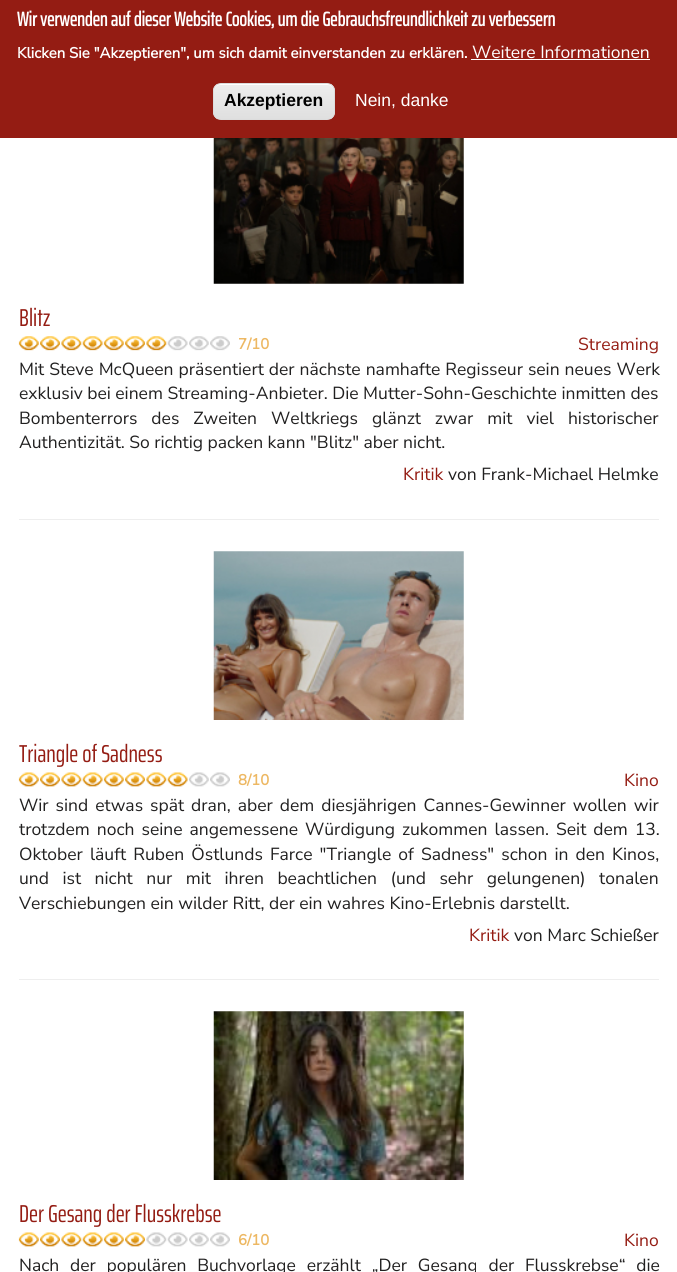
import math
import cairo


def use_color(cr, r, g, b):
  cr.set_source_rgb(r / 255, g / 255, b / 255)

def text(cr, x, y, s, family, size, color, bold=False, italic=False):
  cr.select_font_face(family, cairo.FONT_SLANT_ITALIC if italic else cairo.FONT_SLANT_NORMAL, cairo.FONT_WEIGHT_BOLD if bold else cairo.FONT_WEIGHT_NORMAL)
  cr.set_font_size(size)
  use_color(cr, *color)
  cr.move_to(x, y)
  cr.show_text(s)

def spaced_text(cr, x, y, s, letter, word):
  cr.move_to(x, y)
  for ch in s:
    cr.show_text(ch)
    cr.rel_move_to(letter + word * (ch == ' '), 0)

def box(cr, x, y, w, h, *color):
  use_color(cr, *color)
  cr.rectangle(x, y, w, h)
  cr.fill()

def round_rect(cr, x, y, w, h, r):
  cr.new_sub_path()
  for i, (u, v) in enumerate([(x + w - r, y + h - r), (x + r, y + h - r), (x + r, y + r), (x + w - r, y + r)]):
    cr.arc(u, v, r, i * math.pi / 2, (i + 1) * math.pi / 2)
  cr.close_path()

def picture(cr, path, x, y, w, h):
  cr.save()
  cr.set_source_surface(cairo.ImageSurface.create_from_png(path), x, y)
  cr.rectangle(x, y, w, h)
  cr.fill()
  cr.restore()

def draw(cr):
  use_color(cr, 255, 255, 255)
  cr.paint()
  box(cr, 0, 0, 677, 138, 148, 28, 19)
  box(cr, 471, 59, 179, 1, 255, 255, 255)
  cr.save()
  round_rect(cr, 213, 83, 122, 37, 8)
  cr.clip()
  gradient = cairo.LinearGradient(274, 84, 274, 119)
  gradient.add_color_stop_rgba(0.05, 0.929, 0.929, 0.929, 1)
  gradient.add_color_stop_rgba(1, 0.875, 0.875, 0.875, 1)
  cr.set_source(gradient)
  cr.rectangle(213, 84, 122, 35)
  cr.fill()
  cr.restore()
  cr.new_path()
  cr.move_to(220, 85)
  cr.line_to(328, 85)
  cr.curve_to(331, 85, 334, 88, 334, 91)
  cr.curve_to(334, 80, 316, 84, 310, 84)
  cr.line_to(238, 84)
  cr.curve_to(232, 84, 214, 80, 214, 91)
  cr.curve_to(214, 88, 217, 85, 220, 85)
  cr.close_path()
  cr.fill()
  round_rect(cr, 213.5, 83.5, 121, 36, 7.5)
  use_color(cr, 220, 220, 220)
  cr.set_line_width(1)
  cr.stroke()
  box(cr, 19, 519, 640, 1, 238, 238, 238)
  picture(cr, "img_01.png", 213, 138, 251, 146)
  picture(cr, "img_02.png", 18, 336, 21, 15)
  picture(cr, "img_03.png", 40, 336, 20, 15)
  picture(cr, "img_04.png", 61, 336, 21, 15)
  picture(cr, "img_05.png", 82, 336, 21, 15)
  picture(cr, "img_06.png", 103, 336, 21, 15)
  picture(cr, "img_03.png", 125, 336, 20, 15)
  picture(cr, "img_04.png", 146, 336, 21, 15)
  picture(cr, "img_07.png", 167, 336, 21, 15)
  picture(cr, "img_08.png", 189, 336, 20, 15)
  picture(cr, "img_09.png", 210, 336, 20, 15)
  box(cr, 19, 979, 640, 1, 238, 238, 238)
  picture(cr, "img_10.png", 213, 551, 251, 169)
  picture(cr, "img_11.png", 18, 772, 21, 15)
  picture(cr, "img_12.png", 40, 772, 20, 15)
  picture(cr, "img_13.png", 61, 772, 21, 15)
  picture(cr, "img_14.png", 82, 772, 21, 15)
  picture(cr, "img_15.png", 103, 772, 21, 15)
  picture(cr, "img_12.png", 125, 772, 20, 15)
  picture(cr, "img_13.png", 146, 772, 21, 15)
  picture(cr, "img_14.png", 167, 772, 21, 15)
  picture(cr, "img_16.png", 189, 772, 20, 15)
  picture(cr, "img_17.png", 210, 772, 20, 15)
  picture(cr, "img_18.png", 213, 1011, 251, 169)
  picture(cr, "img_11.png", 18, 1232, 21, 15)
  picture(cr, "img_12.png", 40, 1232, 20, 15)
  picture(cr, "img_13.png", 61, 1232, 21, 15)
  picture(cr, "img_14.png", 82, 1232, 21, 15)
  picture(cr, "img_15.png", 103, 1232, 21, 15)
  picture(cr, "img_12.png", 125, 1232, 20, 15)
  picture(cr, "img_19.png", 146, 1232, 21, 15)
  picture(cr, "img_20.png", 167, 1232, 21, 15)
  picture(cr, "img_16.png", 189, 1232, 20, 15)
  picture(cr, "img_17.png", 210, 1232, 20, 15)
  text(cr, 17, 26, "Wir verwenden auf dieser Website Cookies, um die Gebrauchsfreundlichkeit zu verbessern", "Saira ExtraCondensed", 20, (255, 255, 255), bold=True)
  text(cr, 17, 58, "Klicken Sie \"Akzeptieren\", um sich damit einverstanden zu erklären.", "Nunito Sans", 15, (255, 255, 255), bold=True)
  text(cr, 472, 58, "Weitere Informationen", "Nunito Sans ExtraLight", 17.5, (255, 255, 255))
  text(cr, 224, 106, "Akzeptieren", "Liberation Sans", 17.5, (0, 0, 0), bold=True)
  text(cr, 355, 106, "Nein, danke", "Liberation Sans", 17.5, (255, 255, 255))
  text(cr, 19, 326, "Blitz", "Saira ExtraCondensed", 24.5, (148, 28, 19))
  text(cr, 238, 349, "7/10", "Nunito Sans", 15, (237, 184, 99), bold=True)
  text(cr, 578, 350, "Streaming", "Nunito Sans ExtraLight", 17.5, (148, 28, 19))
  use_color(cr, 33, 32, 32)
  spaced_text(cr, 19, 375, "Mit Steve McQueen präsentiert der nächste namhafte Regisseur sein neues Werk", 0, 0.5)
  text(cr, 19, 399, "exklusiv bei einem Streaming-Anbieter. Die Mutter-Sohn-Geschichte inmitten des", "Nunito Sans ExtraLight", 17.5, (33, 32, 32))
  spaced_text(cr, 19, 424, "Bombenterrors des Zweiten Weltkriegs glänzt zwar mit viel historischer", 0, 9.5)
  text(cr, 19, 448, "Authentizität. So richtig packen kann \"Blitz\" aber nicht.", "Nunito Sans ExtraLight", 17.5, (33, 32, 32))
  text(cr, 403, 480, "Kritik", "Nunito Sans ExtraLight", 17.5, (148, 28, 19))
  text(cr, 448, 480, "von Frank-Michael Helmke", "Nunito Sans ExtraLight", 17.5, (33, 32, 32))
  text(cr, 19, 762, "Triangle of Sadness", "Saira ExtraCondensed", 24.5, (148, 28, 19))
  text(cr, 238, 785, "8/10", "Nunito Sans", 15, (237, 184, 99), bold=True)
  text(cr, 624, 786, "Kino", "Nunito Sans ExtraLight", 17.5, (148, 28, 19))
  use_color(cr, 33, 32, 32)
  spaced_text(cr, 19, 811, "Wir sind etwas spät dran, aber dem diesjährigen Cannes-Gewinner wollen wir", 0, 2.5)
  spaced_text(cr, 19, 835, "trotzdem noch seine angemessene Würdigung zukommen lassen. Seit dem 13.", 0, 2.5)
  spaced_text(cr, 19, 860, "Oktober läuft Ruben Östlunds Farce \"Triangle of Sadness\" schon in den Kinos,", 0, 2.6)
  spaced_text(cr, 19, 884, "und ist nicht nur mit ihren beachtlichen (und sehr gelungenen) tonalen", 0, 9)
  text(cr, 19, 909, "Verschiebungen ein wilder Ritt, der ein wahres Kino-Erlebnis darstellt.", "Nunito Sans ExtraLight", 17.5, (33, 32, 32))
  text(cr, 469, 941, "Kritik", "Nunito Sans ExtraLight", 17.5, (148, 28, 19))
  text(cr, 514, 941, "von Marc Schießer", "Nunito Sans ExtraLight", 17.5, (33, 32, 32))
  text(cr, 19, 1222, "Der Gesang der Flusskrebse", "Saira ExtraCondensed", 24.5, (148, 28, 19))
  text(cr, 238, 1245, "6/10", "Nunito Sans", 15, (237, 184, 99), bold=True)
  text(cr, 624, 1246, "Kino", "Nunito Sans ExtraLight", 17.5, (148, 28, 19))
  use_color(cr, 33, 32, 32)
  spaced_text(cr, 19, 1271, "Nach der populären Buchvorlage erzählt „Der Gesang der Flusskrebse“ die", 0, 6.25)


surface = cairo.ImageSurface(cairo.FORMAT_RGB24, 677, 1272)
cr = cairo.Context(surface)
options = cairo.FontOptions()
options.set_hint_metrics(cairo.HINT_METRICS_OFF)
options.set_hint_style(cairo.HINT_STYLE_NONE)
cr.set_font_options(options)
cr.set_miter_limit(4)
draw(cr)
surface.write_to_png("out.png")
